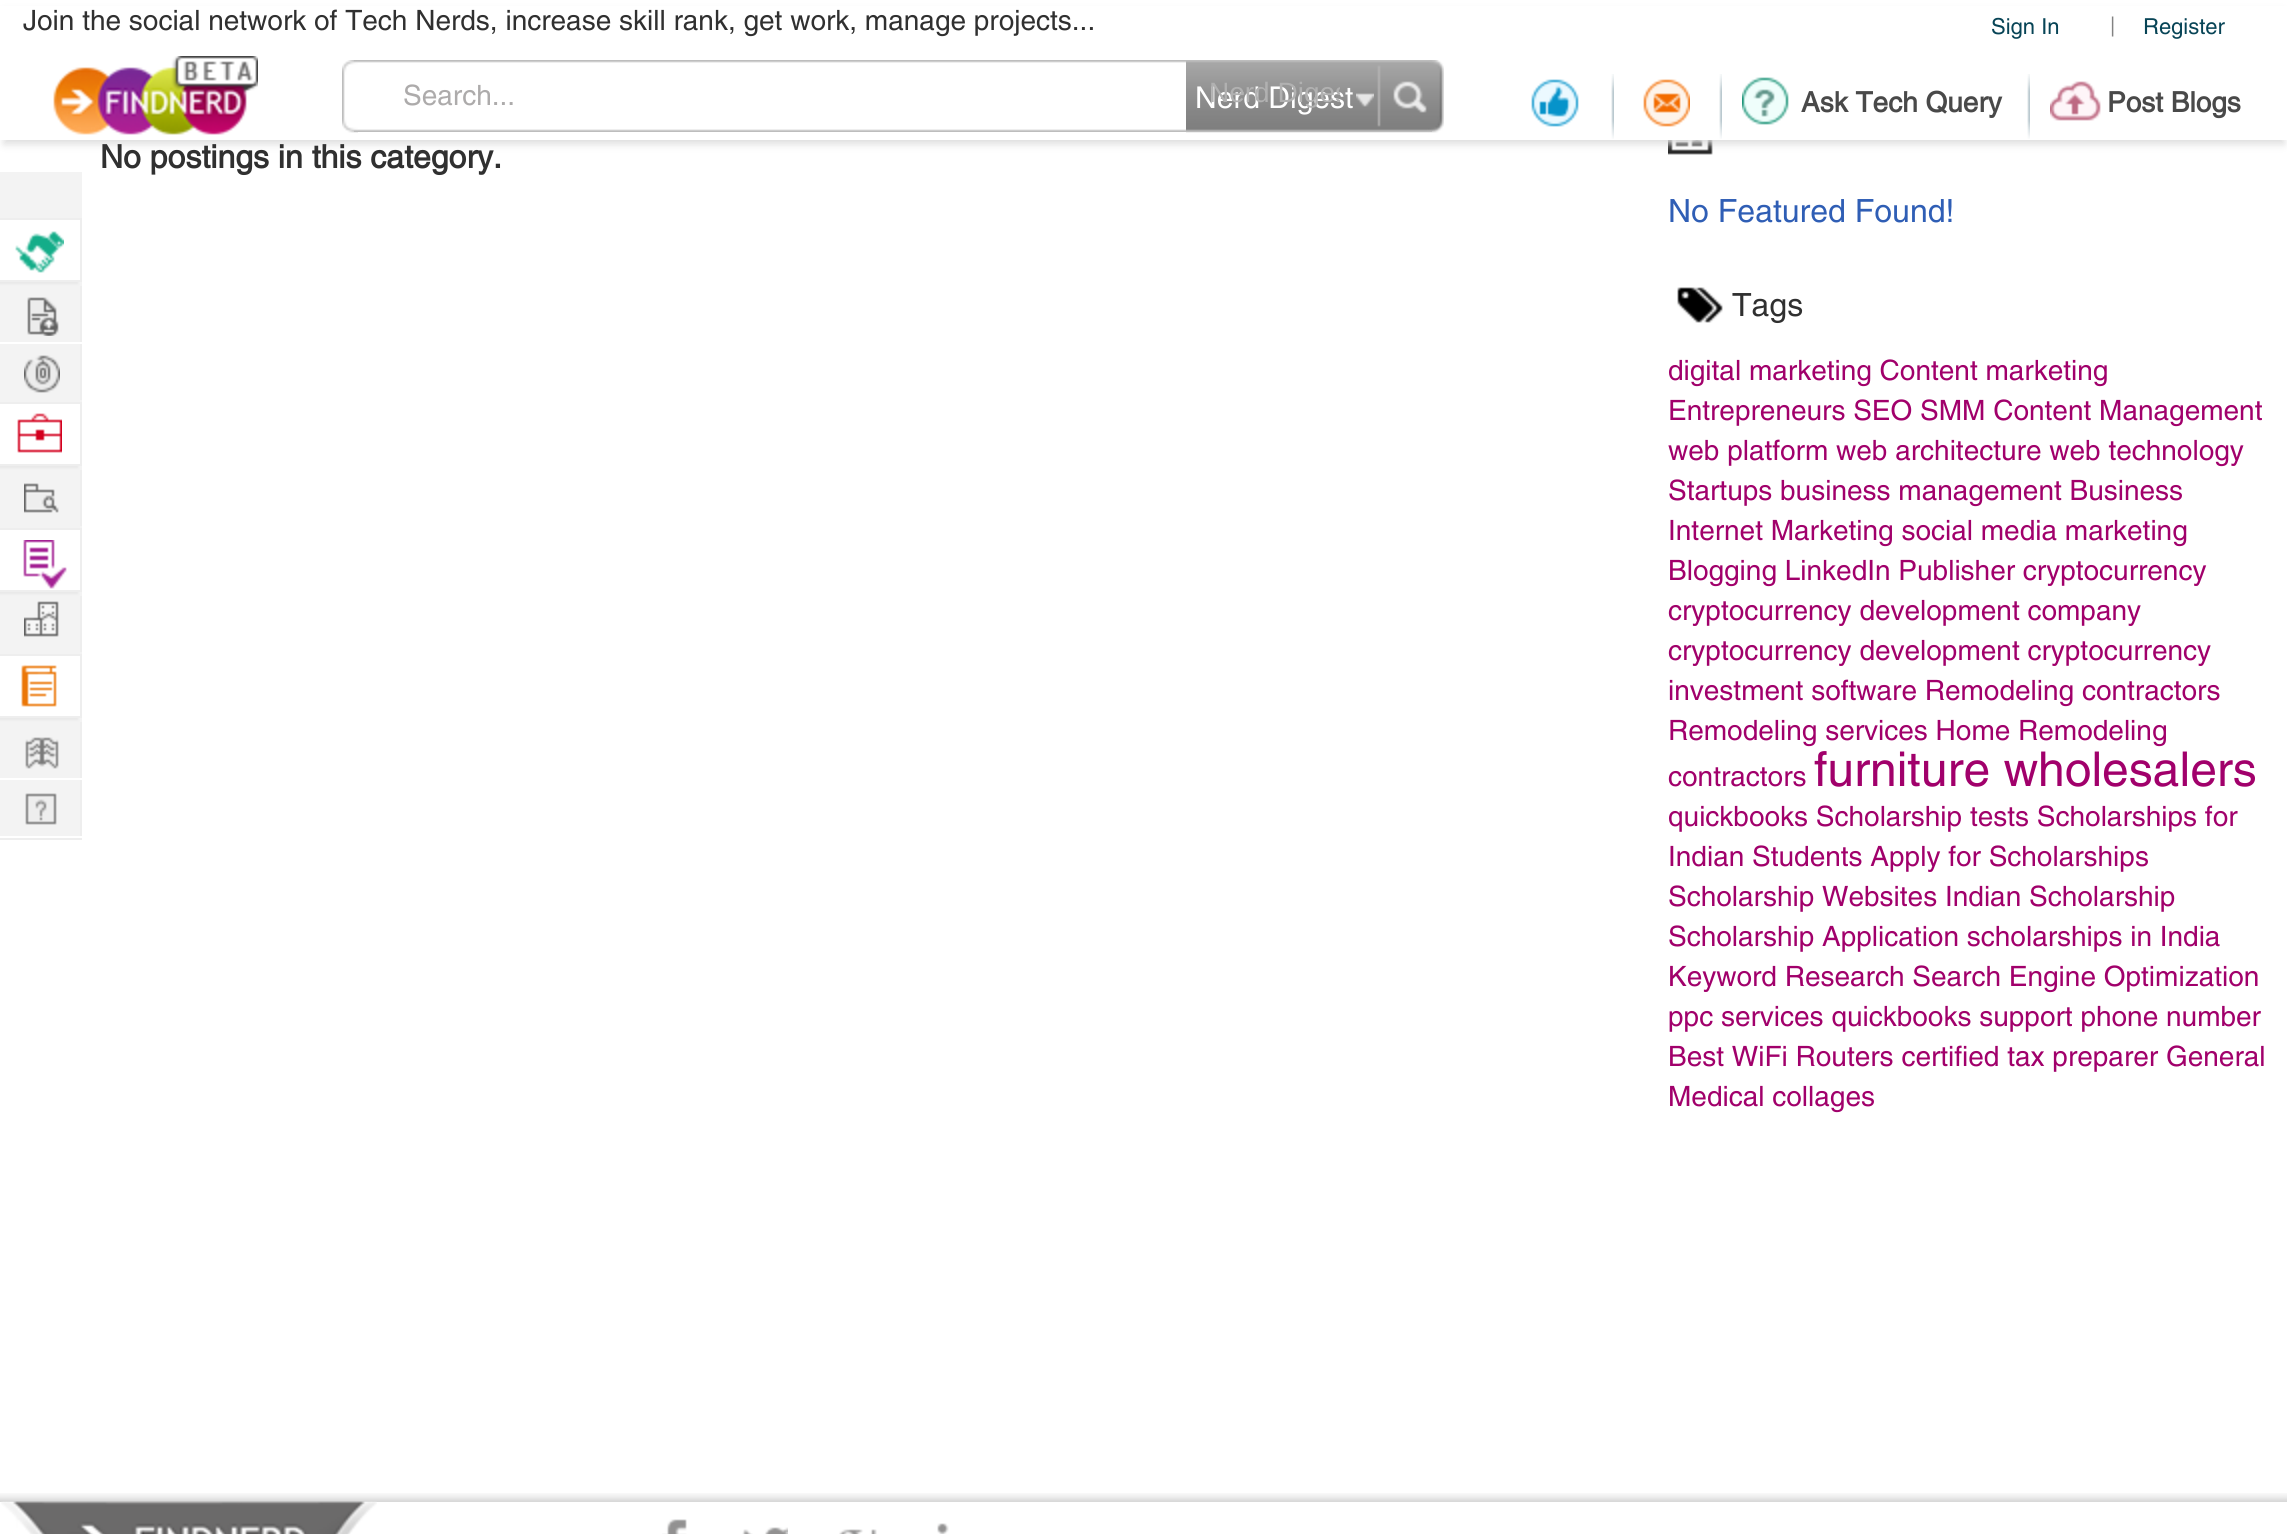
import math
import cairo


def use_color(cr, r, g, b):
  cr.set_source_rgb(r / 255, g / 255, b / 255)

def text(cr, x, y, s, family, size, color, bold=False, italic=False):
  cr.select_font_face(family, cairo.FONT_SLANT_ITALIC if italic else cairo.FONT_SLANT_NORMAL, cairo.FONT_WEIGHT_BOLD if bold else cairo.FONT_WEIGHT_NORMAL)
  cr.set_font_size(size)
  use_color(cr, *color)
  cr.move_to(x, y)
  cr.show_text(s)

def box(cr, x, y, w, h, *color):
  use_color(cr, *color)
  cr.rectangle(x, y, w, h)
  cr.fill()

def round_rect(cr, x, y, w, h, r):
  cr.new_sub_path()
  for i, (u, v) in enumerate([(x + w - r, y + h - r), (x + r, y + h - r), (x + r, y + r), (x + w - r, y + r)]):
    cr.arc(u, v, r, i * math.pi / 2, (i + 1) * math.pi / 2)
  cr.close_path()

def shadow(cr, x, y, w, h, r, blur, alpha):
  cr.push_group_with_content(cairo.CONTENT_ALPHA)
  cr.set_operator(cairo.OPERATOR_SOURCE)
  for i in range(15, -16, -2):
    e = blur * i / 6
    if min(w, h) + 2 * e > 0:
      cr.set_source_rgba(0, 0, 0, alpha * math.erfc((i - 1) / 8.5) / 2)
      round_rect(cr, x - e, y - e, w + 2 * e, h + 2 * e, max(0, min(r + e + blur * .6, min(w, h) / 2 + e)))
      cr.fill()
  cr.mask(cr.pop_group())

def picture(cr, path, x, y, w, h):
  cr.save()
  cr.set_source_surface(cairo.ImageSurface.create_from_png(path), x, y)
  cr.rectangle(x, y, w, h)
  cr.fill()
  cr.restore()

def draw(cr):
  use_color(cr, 255, 255, 255)
  cr.paint()
  picture(cr, "img_22.png", 1668, 140, 45, 15)
  use_color(cr, 221, 221, 221)
  shadow(cr, 4, 12, 2280, 132, 0, 4, 1)
  box(cr, 0, 6, 2287, 134, 255, 255, 255)
  picture(cr, "img_01.png", 53, 56, 205, 79)
  picture(cr, "img_03.png", 354, 60, 1078, 72)
  picture(cr, "img_02.png", 342, 60, 16, 73)
  picture(cr, "img_04.png", 1186, 60, 258, 73)
  picture(cr, "img_05.png", 1356, 93, 18, 14)
  picture(cr, "img_06.png", 1393, 81, 34, 32)
  picture(cr, "img_07.png", 1531, 79, 48, 48)
  picture(cr, "img_08.png", 1611, 74, 3, 65)
  picture(cr, "img_09.png", 1643, 79, 47, 48)
  picture(cr, "img_08.png", 1719, 74, 3, 65)
  picture(cr, "img_10.png", 1742, 77, 47, 48)
  picture(cr, "img_08.png", 2027, 74, 3, 65)
  picture(cr, "img_11.png", 2050, 81, 51, 40)
  box(cr, 0, 172, 82, 664, 243, 243, 243)
  box(cr, 0, 838, 82, 2, 238, 238, 238)
  use_color(cr, 221, 221, 221)
  shadow(cr, -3, 220, 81, 64, 0, 1, 0.5)
  box(cr, 0, 220, 80, 60, 255, 255, 255)
  box(cr, 0, 218, 82, 2, 238, 238, 238)
  box(cr, 80, 218, 2, 64, 238, 238, 238)
  box(cr, 0, 280, 82, 2, 238, 238, 238)
  picture(cr, "img_12.png", 15, 231, 49, 42)
  box(cr, 80, 286, 2, 116, 238, 238, 238)
  box(cr, 0, 342, 82, 2, 255, 255, 255)
  picture(cr, "img_13.png", 27, 297, 32, 39)
  box(cr, 80, 400, 2, 2, 243, 243, 243)
  picture(cr, "img_14.png", 24, 355, 36, 38)
  use_color(cr, 221, 221, 221)
  shadow(cr, -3, 404, 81, 64, 0, 1, 0.5)
  box(cr, 0, 404, 80, 60, 255, 255, 255)
  box(cr, 0, 402, 82, 2, 238, 238, 238)
  box(cr, 80, 402, 2, 64, 238, 238, 238)
  box(cr, 0, 464, 82, 2, 238, 238, 238)
  picture(cr, "img_15.png", 17, 413, 45, 40)
  box(cr, 80, 470, 2, 58, 238, 238, 238)
  box(cr, 80, 526, 2, 2, 243, 243, 243)
  picture(cr, "img_16.png", 24, 483, 35, 30)
  use_color(cr, 221, 221, 221)
  shadow(cr, -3, 530, 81, 64, 0, 1, 0.5)
  box(cr, 0, 530, 80, 60, 255, 255, 255)
  box(cr, 0, 528, 82, 2, 238, 238, 238)
  box(cr, 80, 528, 2, 64, 238, 238, 238)
  box(cr, 0, 590, 82, 2, 238, 238, 238)
  picture(cr, "img_17.png", 23, 540, 44, 49)
  box(cr, 80, 596, 2, 58, 238, 238, 238)
  box(cr, 80, 652, 2, 2, 243, 243, 243)
  picture(cr, "img_18.png", 24, 601, 35, 36)
  use_color(cr, 221, 221, 221)
  shadow(cr, -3, 656, 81, 64, 0, 1, 0.5)
  box(cr, 0, 656, 80, 60, 255, 255, 255)
  box(cr, 0, 654, 82, 2, 238, 238, 238)
  box(cr, 80, 654, 2, 64, 238, 238, 238)
  box(cr, 0, 716, 82, 2, 238, 238, 238)
  picture(cr, "img_19.png", 21, 664, 36, 43)
  box(cr, 80, 722, 2, 116, 238, 238, 238)
  box(cr, 0, 778, 82, 2, 255, 255, 255)
  picture(cr, "img_20.png", 25, 737, 34, 32)
  box(cr, 80, 836, 2, 2, 255, 255, 255)
  picture(cr, "img_21.png", 25, 793, 32, 32)
  picture(cr, "img_23.png", 1677, 287, 46, 36)
  picture(cr, "img_24.png", 0, 1493, 2287, 9)
  picture(cr, "img_25.png", 1, 1501, 376, 33)
  picture(cr, "img_26.png", 662, 1519, 25, 15)
  picture(cr, "img_27.png", 742, 1527, 46, 7)
  picture(cr, "img_28.png", 839, 1529, 38, 5)
  picture(cr, "img_29.png", 937, 1523, 12, 11)
  text(cr, 23, 30, "Join the social network of Tech Nerds, increase skill rank, get work, manage projects...", "Helvetica", 28, (48, 48, 48))
  text(cr, 1991, 34, "Sign In", "Helvetica", 22, (7, 68, 86))
  text(cr, 2110, 32, "|", "Helvetica", 20, (130, 130, 130))
  text(cr, 2143, 34, "Register", "Helvetica", 22, (7, 68, 86))
  text(cr, 403, 105, "Search...", "Helvetica", 28, (173, 171, 171))
  text(cr, 1195, 108, "Nerd Digest", "Helvetica", 30, (255, 255, 255))
  cr.save()
  cr.rectangle(1208, 74, 132, 36)
  cr.clip()
  text(cr, 1209, 102, "Nerd Diges", "Liberation Sans", 28, (177, 177, 177))
  cr.restore()
  text(cr, 1801, 112, "Ask Tech Query", "Helvetica", 28, (73, 73, 73), bold=True)
  text(cr, 2107, 112, "Post Blogs", "Helvetica", 28, (73, 73, 73), bold=True)
  text(cr, 100, 168, "No postings in this category.", "Helvetica", 32, (48, 48, 48), bold=True)
  text(cr, 1668, 222, "No Featured Found!", "Helvetica", 32, (47, 94, 181))
  text(cr, 1732, 316, "Tags", "Helvetica", 32, (48, 48, 48))
  text(cr, 1668, 380, "digital marketing Content marketing", "Helvetica", 28, (161, 0, 107))
  text(cr, 1668, 420, "Entrepreneurs SEO SMM Content Management", "Helvetica", 28, (161, 0, 107))
  text(cr, 1668, 460, "web platform web architecture web technology", "Helvetica", 28, (161, 0, 107))
  text(cr, 1668, 500, "Startups business management Business", "Helvetica", 28, (161, 0, 107))
  text(cr, 1668, 540, "Internet Marketing social media marketing", "Helvetica", 28, (161, 0, 107))
  text(cr, 1668, 580, "Blogging LinkedIn Publisher cryptocurrency", "Helvetica", 28, (161, 0, 107))
  text(cr, 1668, 620, "cryptocurrency development company", "Helvetica", 28, (161, 0, 107))
  text(cr, 1668, 660, "cryptocurrency development cryptocurrency", "Helvetica", 28, (161, 0, 107))
  text(cr, 1668, 700, "investment software Remodeling contractors", "Helvetica", 28, (161, 0, 107))
  text(cr, 1668, 740, "Remodeling services Home Remodeling", "Helvetica", 28, (161, 0, 107))
  text(cr, 1668, 786, "contractors", "Helvetica", 28, (161, 0, 107))
  text(cr, 1814, 786, "furniture wholesalers", "Helvetica", 48, (161, 0, 107))
  text(cr, 1668, 826, "quickbooks Scholarship tests Scholarships for", "Helvetica", 28, (161, 0, 107))
  text(cr, 1668, 866, "Indian Students Apply for Scholarships", "Helvetica", 28, (161, 0, 107))
  text(cr, 1668, 906, "Scholarship Websites Indian Scholarship", "Helvetica", 28, (161, 0, 107))
  text(cr, 1668, 946, "Scholarship Application scholarships in India", "Helvetica", 28, (161, 0, 107))
  text(cr, 1668, 986, "Keyword Research Search Engine Optimization", "Helvetica", 28, (161, 0, 107))
  text(cr, 1668, 1026, "ppc services quickbooks support phone number", "Helvetica", 28, (161, 0, 107))
  text(cr, 1668, 1066, "Best WiFi Routers certified tax preparer General", "Helvetica", 28, (161, 0, 107))
  text(cr, 1668, 1106, "Medical collages", "Helvetica", 28, (161, 0, 107))


surface = cairo.ImageSurface(cairo.FORMAT_RGB24, 2287, 1534)
cr = cairo.Context(surface)
options = cairo.FontOptions()
options.set_hint_metrics(cairo.HINT_METRICS_OFF)
options.set_hint_style(cairo.HINT_STYLE_NONE)
cr.set_font_options(options)
cr.set_miter_limit(4)
draw(cr)
surface.write_to_png("out.png")
